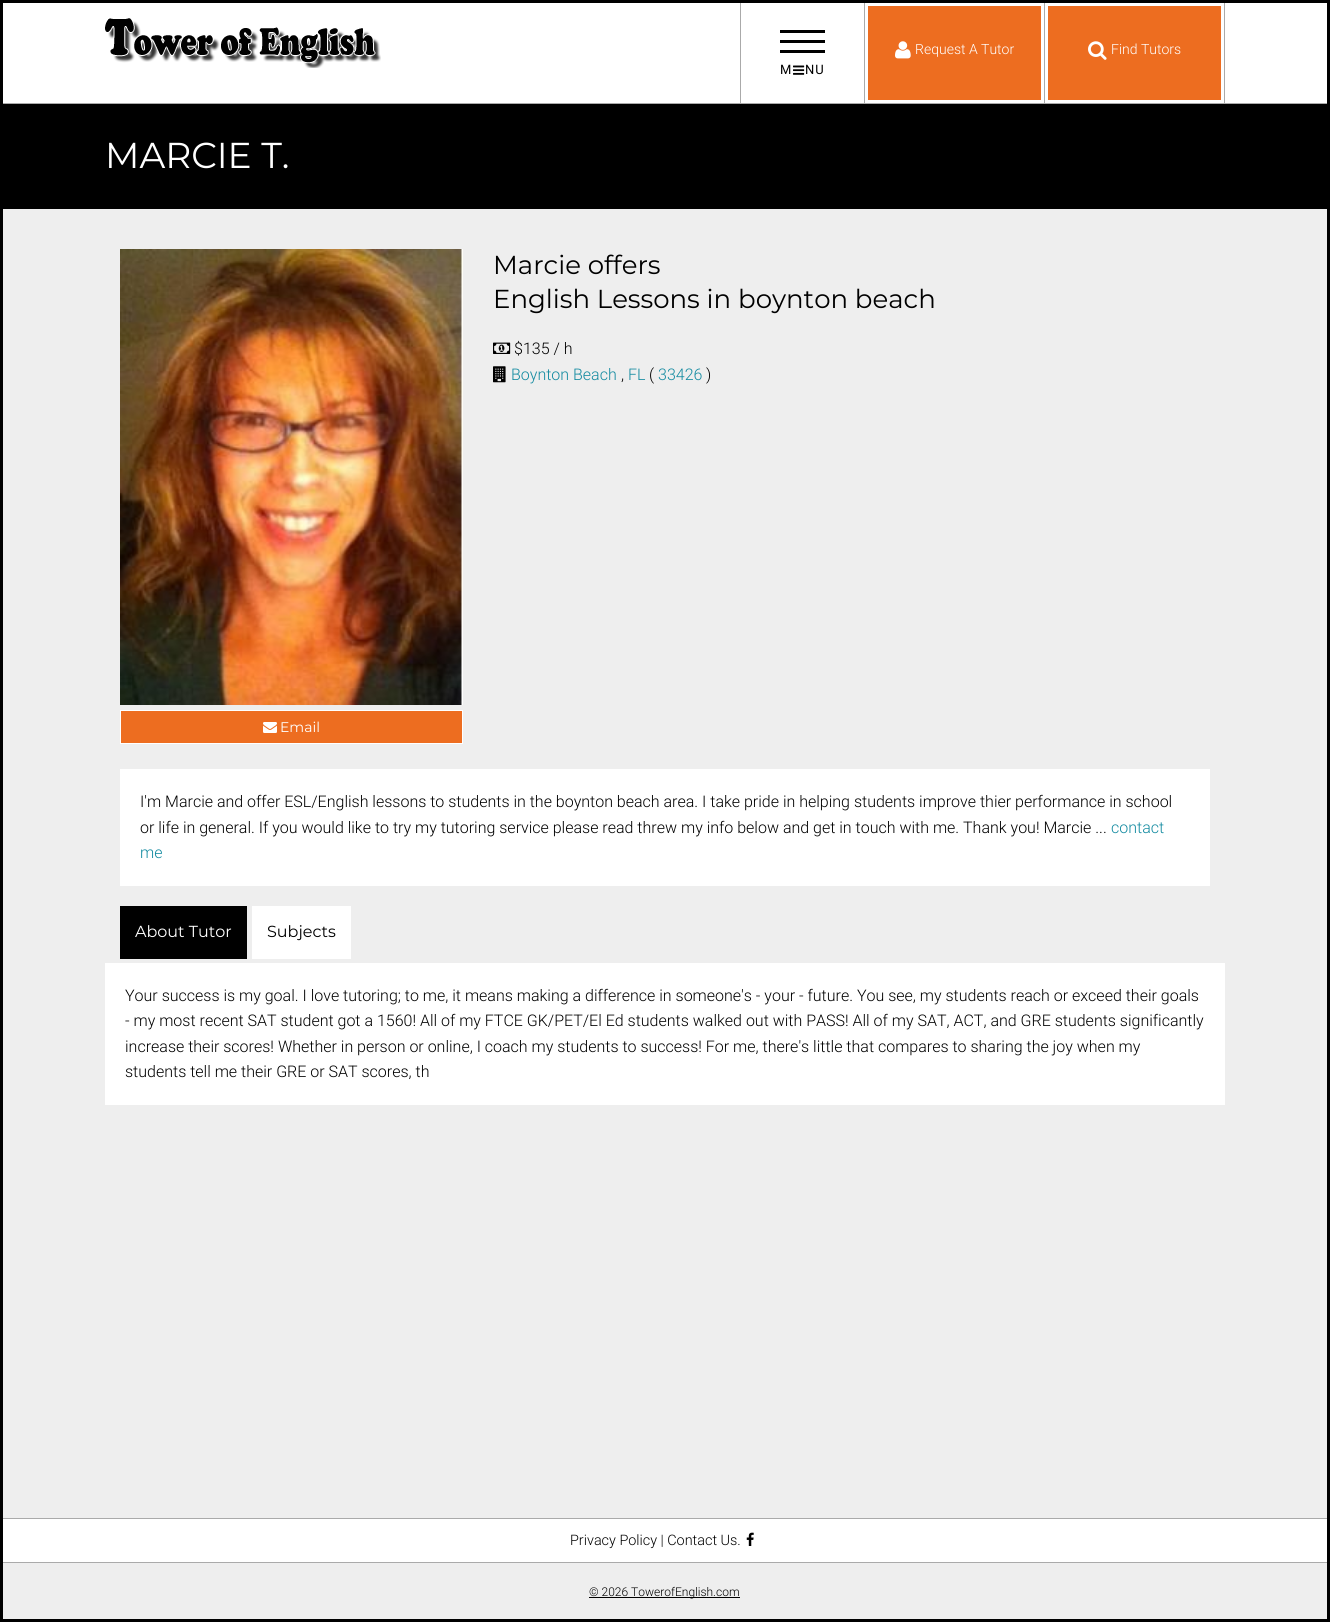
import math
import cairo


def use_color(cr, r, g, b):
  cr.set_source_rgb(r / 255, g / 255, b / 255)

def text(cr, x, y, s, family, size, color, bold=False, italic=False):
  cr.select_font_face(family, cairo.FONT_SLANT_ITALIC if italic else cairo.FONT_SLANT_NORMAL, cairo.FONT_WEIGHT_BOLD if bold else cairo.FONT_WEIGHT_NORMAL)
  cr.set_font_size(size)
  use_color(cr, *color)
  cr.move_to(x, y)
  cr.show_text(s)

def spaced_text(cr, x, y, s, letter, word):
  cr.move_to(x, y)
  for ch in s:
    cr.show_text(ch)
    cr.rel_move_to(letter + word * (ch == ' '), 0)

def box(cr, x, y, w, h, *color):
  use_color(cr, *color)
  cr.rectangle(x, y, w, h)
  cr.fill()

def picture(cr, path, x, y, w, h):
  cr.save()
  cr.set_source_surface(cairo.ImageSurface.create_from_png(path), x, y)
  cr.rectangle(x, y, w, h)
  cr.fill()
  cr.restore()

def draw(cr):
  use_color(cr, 238, 238, 238)
  cr.paint()
  box(cr, 0, 103, 1330, 1, 170, 170, 170)
  box(cr, 0, 1518, 1330, 1, 170, 170, 170)
  box(cr, 0, 1562, 1329, 1, 170, 170, 170)
  box(cr, 0, 0, 3, 1622, 0, 0, 0)
  box(cr, 0, 0, 1330, 3, 0, 0, 0)
  box(cr, 3, 3, 1324, 100, 255, 255, 255)
  picture(cr, "img_01.png", 105, 18, 276, 50)
  box(cr, 868, 6, 173, 94, 237, 109, 32)
  box(cr, 1044, 3, 1, 100, 170, 170, 170)
  picture(cr, "img_02.png", 895, 41, 16, 18)
  box(cr, 1048, 6, 173, 94, 237, 109, 32)
  box(cr, 1224, 3, 1, 100, 170, 170, 170)
  picture(cr, "img_03.png", 1088, 41, 19, 19)
  box(cr, 864, 3, 1, 100, 170, 170, 170)
  box(cr, 740, 3, 1, 100, 170, 170, 170)
  box(cr, 780, 40, 45, 3, 0, 0, 0)
  box(cr, 780, 30, 45, 3, 0, 0, 0)
  box(cr, 780, 50, 45, 3, 0, 0, 0)
  picture(cr, "img_04.png", 793, 65, 12, 10)
  box(cr, 3, 104, 1324, 105, 0, 0, 0)
  picture(cr, "img_05.png", 493, 342, 18, 12)
  picture(cr, "img_06.png", 493, 366, 13, 17)
  picture(cr, "img_07.png", 120, 249, 343, 456)
  use_color(cr, 237, 109, 32)
  cr.rectangle(120.5, 710.5, 342, 33)
  cr.fill_preserve()
  use_color(cr, 255, 255, 255)
  cr.set_line_width(1)
  cr.stroke()
  picture(cr, "img_08.png", 263, 722, 14, 11)
  box(cr, 120, 769, 1090, 117, 255, 255, 255)
  box(cr, 120, 906, 127, 53, 0, 0, 0)
  box(cr, 252, 906, 99, 53, 255, 255, 255)
  box(cr, 105, 963, 1120, 142, 255, 255, 255)
  box(cr, 3, 1519, 1324, 43, 255, 255, 255)
  picture(cr, "img_09.png", 746, 1532, 8, 14)
  box(cr, 589, 1597, 151, 1, 0, 0, 0)
  box(cr, 0, 1619, 1330, 3, 0, 0, 0)
  box(cr, 1327, 0, 3, 1622, 0, 0, 0)
  text(cr, 915, 54, "Request A Tutor", "Roboto Light", 14, (255, 255, 255))
  text(cr, 1111, 54, "Find Tutors", "Roboto Light", 14, (255, 255, 255))
  cr.select_font_face("Roboto")
  cr.set_font_size(13)
  use_color(cr, 0, 0, 0)
  spaced_text(cr, 780, 74, "M", 1, 0)
  spaced_text(cr, 805, 74, "NU", 1, 0)
  text(cr, 105, 168, "MARCIE T.", "Montserrat", 36, (255, 255, 255))
  text(cr, 493, 274, "Marcie offers", "Montserrat", 26, (0, 0, 0))
  text(cr, 493, 308, "English Lessons in boynton beach", "Montserrat", 26, (0, 0, 0))
  text(cr, 514, 354, "$135 / h", "Roboto Light", 16, (0, 0, 0))
  text(cr, 511, 380, "Boynton Beach", "Roboto Light", 16, (18, 138, 160))
  text(cr, 621, 380, ",", "Roboto Light", 16, (0, 0, 0))
  text(cr, 628, 380, "FL", "Roboto Light", 16, (18, 138, 160))
  text(cr, 649, 380, "(", "Roboto Light", 16, (0, 0, 0))
  text(cr, 658, 380, "33426", "Roboto Light", 16, (18, 138, 160))
  text(cr, 706, 380, ")", "Roboto Light", 16, (0, 0, 0))
  text(cr, 280, 732, "Email", "Montserrat", 14, (255, 255, 255))
  text(cr, 140, 807, "I'm Marcie and offer ESL/English lessons to students in the boynton beach area. I take pride in helping students improve thier performance in school", "Roboto Light", 16, (0, 0, 0))
  text(cr, 140, 833, "or life in general. If you would like to try my tutoring service please read threw my info below and get in touch with me. Thank you! Marcie ...", "Roboto Light", 16, (0, 0, 0))
  text(cr, 1111, 833, "contact", "Roboto Light", 16, (18, 138, 160))
  text(cr, 140, 858, "me", "Roboto Light", 16, (18, 138, 160))
  text(cr, 135, 937, "About Tutor", "Montserrat", 16, (255, 255, 255))
  text(cr, 267, 937, "Subjects", "Montserrat", 16, (0, 0, 0))
  text(cr, 125, 1001, "Your success is my goal. I love tutoring; to me, it means making a difference in someone's - your - future. You see, my students reach or exceed their goals", "Roboto Light", 16, (0, 0, 0))
  text(cr, 125, 1026, "- my most recent SAT student got a 1560! All of my FTCE GK/PET/El Ed students walked out with PASS! All of my SAT, ACT, and GRE students significantly", "Roboto Light", 16, (0, 0, 0))
  text(cr, 125, 1052, "increase their scores! Whether in person or online, I coach my students to success! For me, there's little that compares to sharing the joy when my", "Roboto Light", 16, (0, 0, 0))
  text(cr, 125, 1077, "students tell me their GRE or SAT scores, th", "Roboto Light", 16, (0, 0, 0))
  text(cr, 570, 1545, "Privacy Policy | Contact Us.", "Roboto Light", 14.4, (0, 0, 0))
  text(cr, 589, 1596, "© 2026 TowerofEnglish.com", "Roboto Light", 12, (0, 0, 0))


surface = cairo.ImageSurface(cairo.FORMAT_RGB24, 1330, 1622)
cr = cairo.Context(surface)
options = cairo.FontOptions()
options.set_hint_metrics(cairo.HINT_METRICS_OFF)
options.set_hint_style(cairo.HINT_STYLE_NONE)
cr.set_font_options(options)
cr.set_miter_limit(4)
draw(cr)
surface.write_to_png("out.png")
